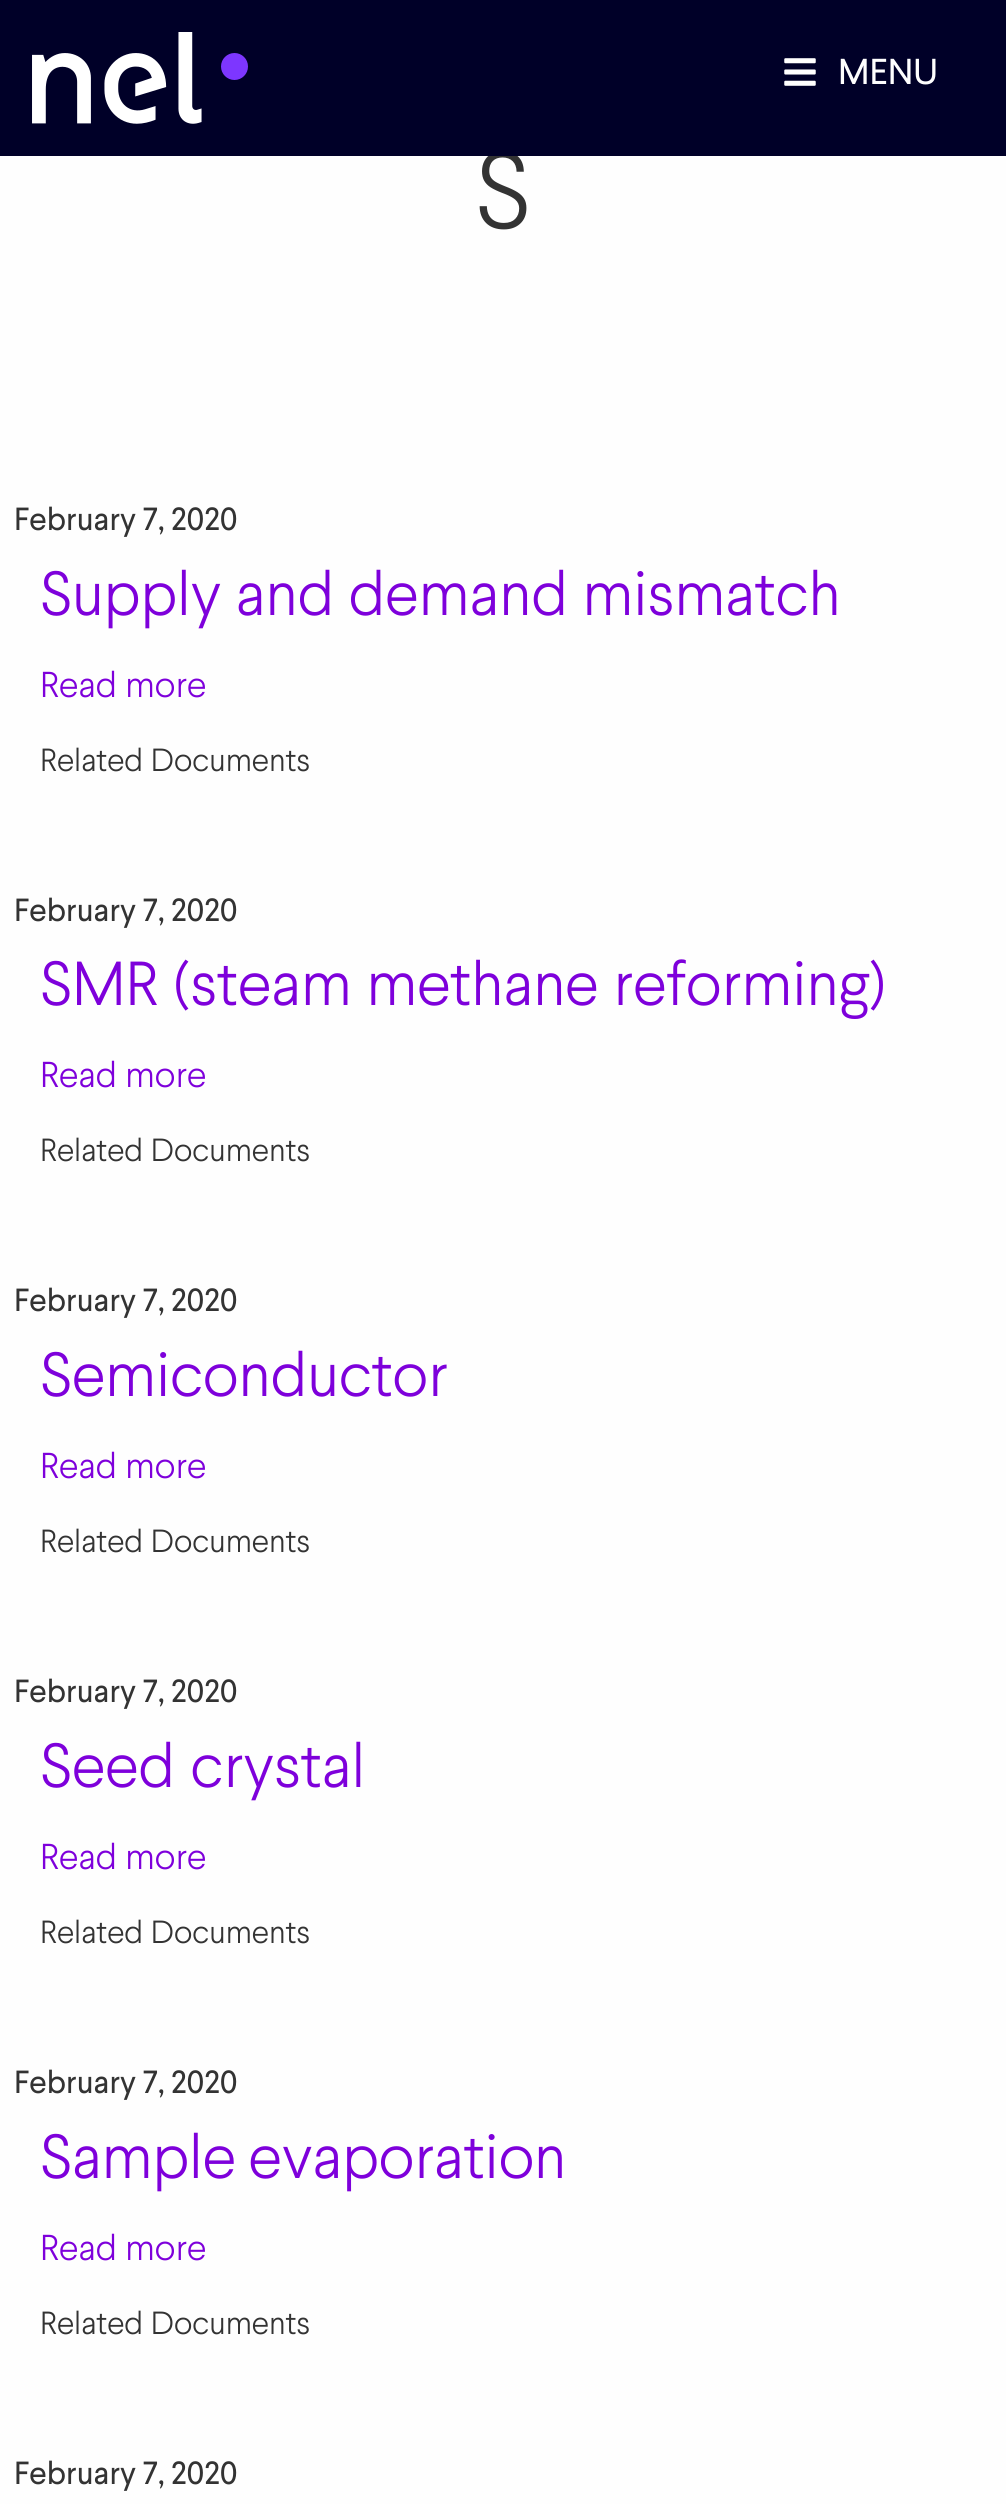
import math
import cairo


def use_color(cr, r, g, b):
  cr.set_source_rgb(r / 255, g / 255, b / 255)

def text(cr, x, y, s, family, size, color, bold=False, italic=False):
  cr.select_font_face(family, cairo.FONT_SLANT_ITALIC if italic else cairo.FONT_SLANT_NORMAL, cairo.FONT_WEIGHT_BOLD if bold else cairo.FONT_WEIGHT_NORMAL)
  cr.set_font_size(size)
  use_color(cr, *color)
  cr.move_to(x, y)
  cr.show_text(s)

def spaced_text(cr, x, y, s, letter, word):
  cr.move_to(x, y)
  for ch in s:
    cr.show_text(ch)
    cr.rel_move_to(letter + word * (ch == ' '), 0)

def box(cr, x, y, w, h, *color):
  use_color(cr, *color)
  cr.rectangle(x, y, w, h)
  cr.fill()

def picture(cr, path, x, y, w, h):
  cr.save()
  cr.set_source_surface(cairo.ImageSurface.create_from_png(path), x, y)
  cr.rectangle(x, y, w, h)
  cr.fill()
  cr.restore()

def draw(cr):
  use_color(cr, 254, 254, 254)
  cr.paint()
  text(cr, 475, 228, "S", "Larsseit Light", 108, (51, 51, 51))
  box(cr, 0, 0, 1006, 156, 0, 0, 40)
  picture(cr, "img_02.png", 784, 58, 32, 28)
  text(cr, 838, 84, "MENU", "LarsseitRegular", 36, (254, 254, 254))
  picture(cr, "img_01.png", 32, 32, 216, 92)
  cr.set_font_size(32)
  use_color(cr, 51, 51, 51)
  spaced_text(cr, 14, 530, "February 7, 2020", 0, -1)
  text(cr, 40, 615, "Supply and demand mismatch", "Larsseit Light", 62, (126, 0, 219))
  text(cr, 40, 697, "Read more", "Larsseit Light", 36, (126, 0, 219))
  text(cr, 40, 771, "Related Documents", "Larsseit Light", 32, (51, 51, 51))
  cr.select_font_face("LarsseitRegular")
  spaced_text(cr, 14, 921, "February 7, 2020", 0, -1)
  text(cr, 40, 1005, "SMR (steam methane reforming)", "Larsseit Light", 62, (126, 0, 219))
  text(cr, 40, 1087, "Read more", "Larsseit Light", 36, (126, 0, 219))
  text(cr, 40, 1161, "Related Documents", "Larsseit Light", 32, (51, 51, 51))
  cr.select_font_face("LarsseitRegular")
  spaced_text(cr, 14, 1311, "February 7, 2020", 0, -1)
  text(cr, 40, 1396, "Semiconductor", "Larsseit Light", 62, (126, 0, 219))
  text(cr, 40, 1478, "Read more", "Larsseit Light", 36, (126, 0, 219))
  text(cr, 40, 1552, "Related Documents", "Larsseit Light", 32, (51, 51, 51))
  cr.select_font_face("LarsseitRegular")
  spaced_text(cr, 14, 1702, "February 7, 2020", 0, -1)
  cr.select_font_face("Larsseit Light")
  cr.set_font_size(62)
  use_color(cr, 126, 0, 219)
  spaced_text(cr, 40, 1787, "Seed crystal", 0, 1)
  text(cr, 40, 1869, "Read more", "Larsseit Light", 36, (126, 0, 219))
  text(cr, 40, 1943, "Related Documents", "Larsseit Light", 32, (51, 51, 51))
  cr.select_font_face("LarsseitRegular")
  spaced_text(cr, 14, 2093, "February 7, 2020", 0, -1)
  cr.select_font_face("Larsseit Light")
  cr.set_font_size(62)
  use_color(cr, 126, 0, 219)
  spaced_text(cr, 40, 2178, "Sample evaporation", 0, -2)
  text(cr, 40, 2260, "Read more", "Larsseit Light", 36, (126, 0, 219))
  text(cr, 40, 2334, "Related Documents", "Larsseit Light", 32, (51, 51, 51))
  cr.select_font_face("LarsseitRegular")
  spaced_text(cr, 14, 2484, "February 7, 2020", 0, -1)


surface = cairo.ImageSurface(cairo.FORMAT_RGB24, 1006, 2504)
cr = cairo.Context(surface)
options = cairo.FontOptions()
options.set_hint_metrics(cairo.HINT_METRICS_OFF)
options.set_hint_style(cairo.HINT_STYLE_NONE)
cr.set_font_options(options)
cr.set_miter_limit(4)
draw(cr)
surface.write_to_png("out.png")
